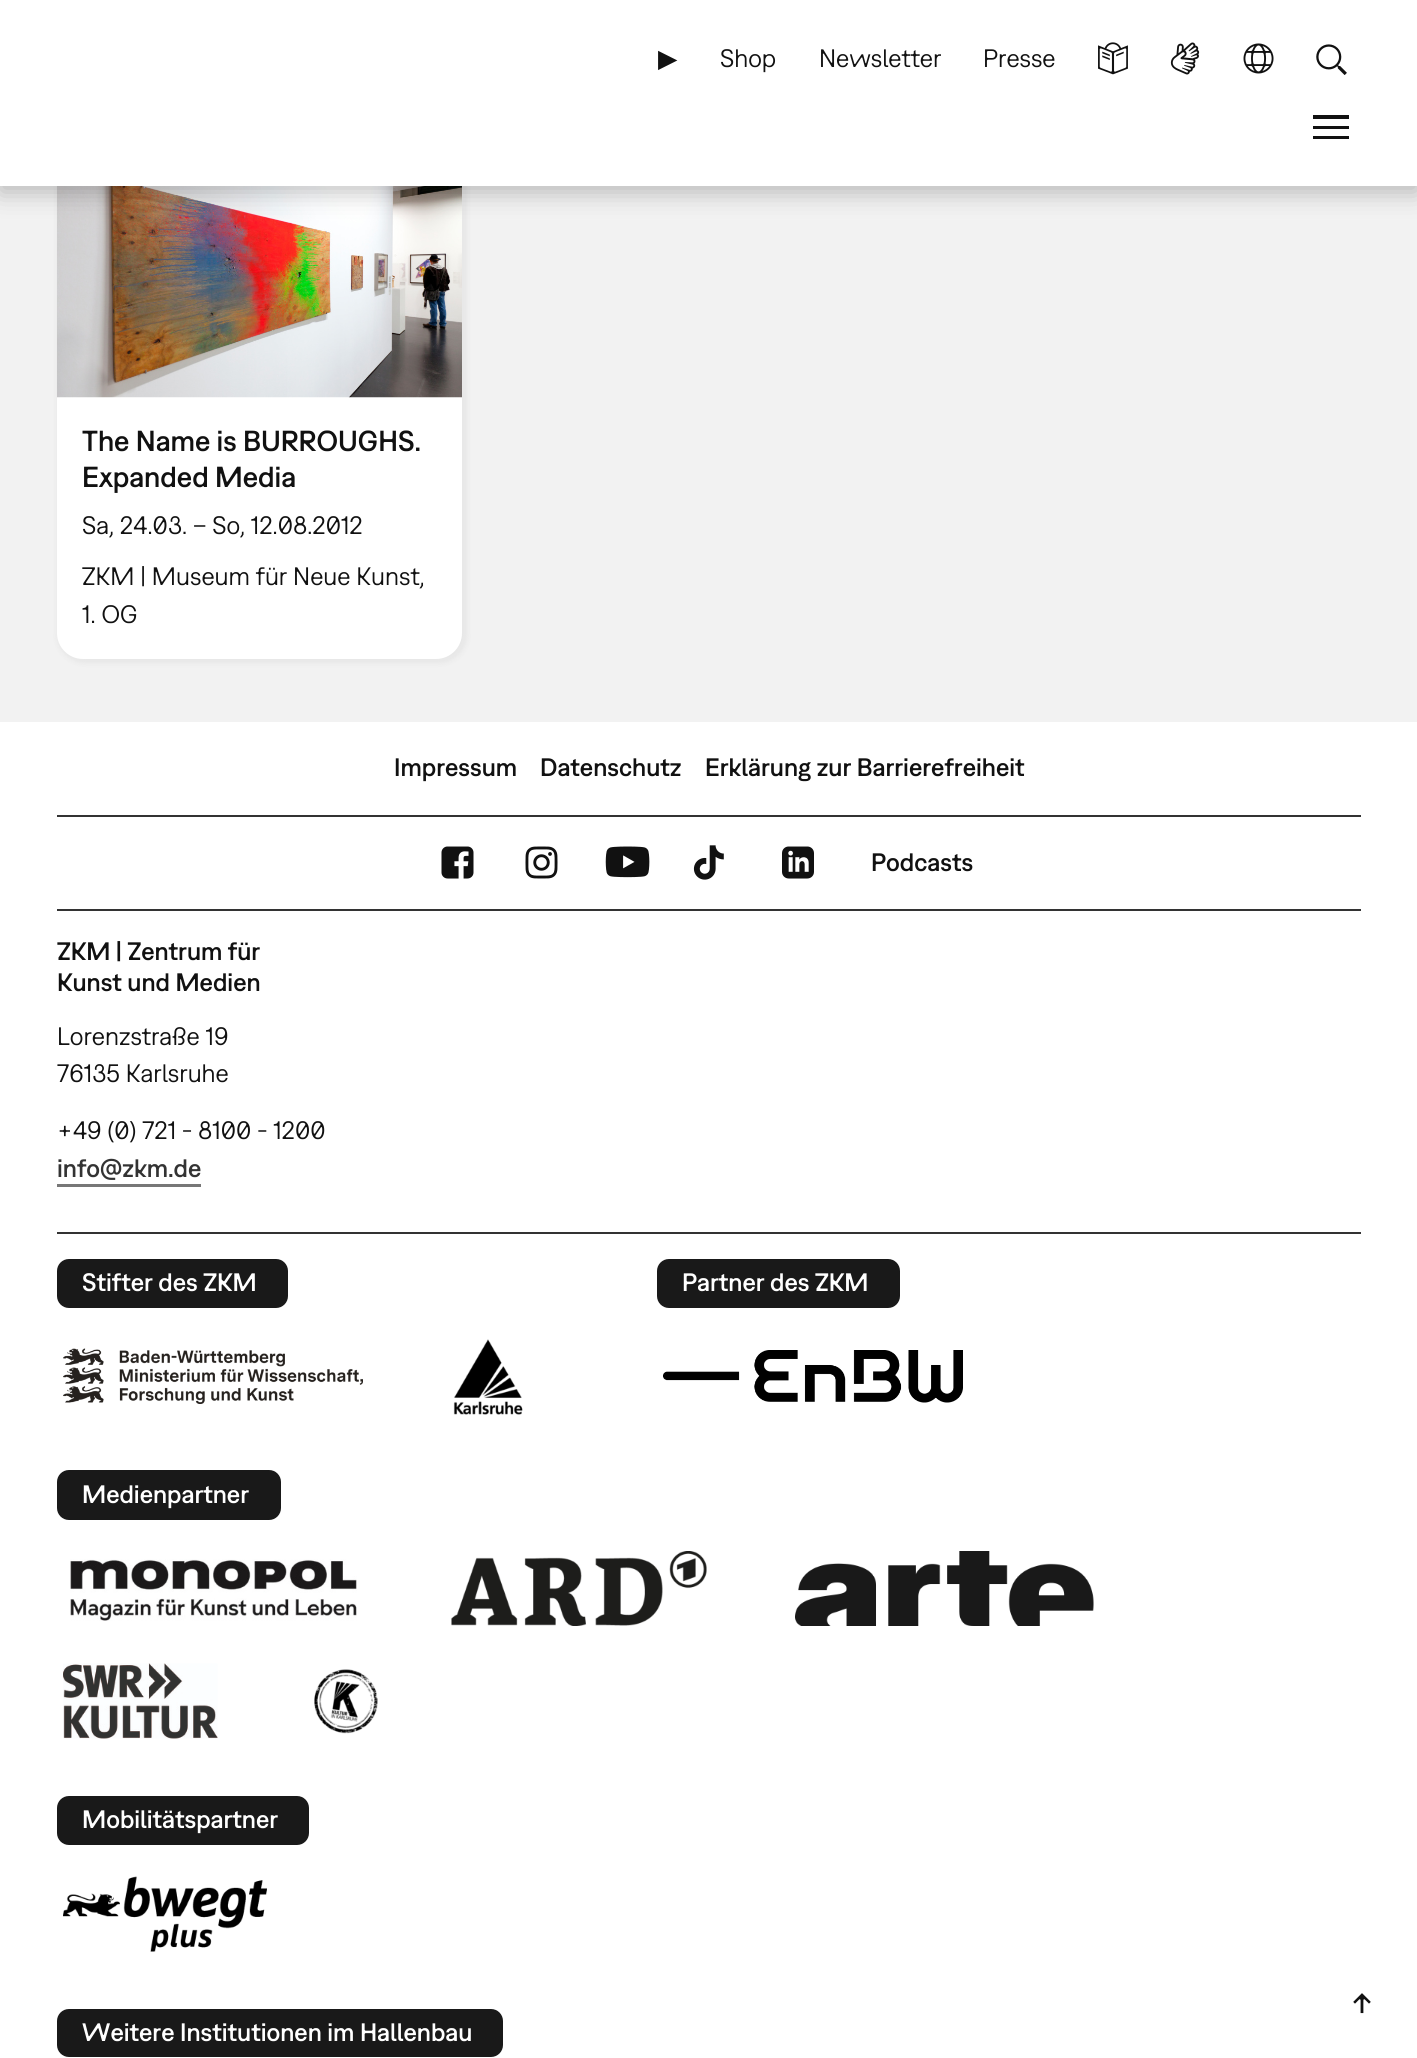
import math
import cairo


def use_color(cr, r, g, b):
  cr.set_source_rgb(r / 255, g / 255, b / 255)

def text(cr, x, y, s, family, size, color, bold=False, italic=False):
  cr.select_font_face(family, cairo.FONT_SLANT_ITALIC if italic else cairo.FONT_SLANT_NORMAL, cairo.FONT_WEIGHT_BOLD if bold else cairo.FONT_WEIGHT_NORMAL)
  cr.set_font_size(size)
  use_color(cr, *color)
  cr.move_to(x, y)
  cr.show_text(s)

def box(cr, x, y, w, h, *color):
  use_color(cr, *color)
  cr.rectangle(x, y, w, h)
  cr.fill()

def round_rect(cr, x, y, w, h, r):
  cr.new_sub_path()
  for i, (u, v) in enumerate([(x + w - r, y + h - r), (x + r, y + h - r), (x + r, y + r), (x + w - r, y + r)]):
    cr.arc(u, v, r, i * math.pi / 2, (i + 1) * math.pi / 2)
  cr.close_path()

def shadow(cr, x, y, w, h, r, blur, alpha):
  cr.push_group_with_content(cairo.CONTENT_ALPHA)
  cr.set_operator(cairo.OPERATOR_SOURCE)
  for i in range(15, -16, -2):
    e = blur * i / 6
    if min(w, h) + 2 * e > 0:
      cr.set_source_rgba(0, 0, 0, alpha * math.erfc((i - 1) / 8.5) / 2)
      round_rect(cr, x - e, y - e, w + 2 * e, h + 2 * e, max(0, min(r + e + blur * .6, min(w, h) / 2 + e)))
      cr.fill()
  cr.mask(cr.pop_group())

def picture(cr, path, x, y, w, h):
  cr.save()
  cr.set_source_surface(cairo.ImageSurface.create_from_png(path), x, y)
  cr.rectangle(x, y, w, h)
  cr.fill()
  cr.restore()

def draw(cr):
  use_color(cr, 255, 255, 255)
  cr.paint()
  box(cr, 0, 186, 1417, 536, 242, 242, 242)
  use_color(cr, 0, 0, 0)
  shadow(cr, 57, 144, 410, 519, 27, 3, 0.05)
  use_color(cr, 255, 255, 255)
  round_rect(cr, 57, 144, 405, 515, 26)
  cr.fill()
  picture(cr, "img_05.png", 57, 186, 405, 212)
  use_color(cr, 0, 0, 0)
  shadow(cr, 0, 6, 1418, 186, 0, 12.5, 0.25)
  box(cr, 0, 0, 1417, 186, 255, 255, 255)
  picture(cr, "img_01.png", 1098, 42, 30, 33)
  picture(cr, "img_02.png", 1170, 42, 30, 33)
  picture(cr, "img_03.png", 1243, 43, 31, 31)
  picture(cr, "img_04.png", 1316, 44, 31, 31)
  box(cr, 1313, 115, 36, 4, 17, 17, 17)
  box(cr, 1313, 126, 36, 3, 17, 17, 17)
  box(cr, 1313, 136, 36, 3, 17, 17, 17)
  box(cr, 57, 815, 1304, 2, 51, 51, 51)
  picture(cr, "img_06.png", 441, 846, 33, 33)
  picture(cr, "img_07.png", 525, 846, 33, 33)
  picture(cr, "img_08.png", 605, 846, 45, 32)
  picture(cr, "img_09.png", 693, 845, 31, 35)
  picture(cr, "img_10.png", 782, 846, 32, 33)
  box(cr, 57, 909, 1304, 2, 51, 51, 51)
  box(cr, 57, 1184, 144, 3, 119, 119, 119)
  box(cr, 57, 1232, 1304, 2, 51, 51, 51)
  use_color(cr, 25, 25, 25)
  round_rect(cr, 57, 1259, 231, 49, 12)
  cr.fill()
  picture(cr, "img_11.png", 63, 1348, 300, 56)
  picture(cr, "img_12.png", 453, 1339, 70, 76)
  round_rect(cr, 657, 1259, 243, 49, 12)
  cr.fill()
  picture(cr, "img_13.png", 663, 1350, 300, 53)
  round_rect(cr, 57, 1470, 224, 50, 12)
  cr.fill()
  picture(cr, "img_14.png", 70, 1559, 287, 62)
  picture(cr, "img_15.png", 451, 1551, 256, 75)
  picture(cr, "img_16.png", 795, 1551, 299, 75)
  picture(cr, "img_17.png", 63, 1663, 155, 76)
  picture(cr, "img_18.png", 314, 1669, 64, 65)
  round_rect(cr, 57, 1796, 252, 49, 12)
  cr.fill()
  picture(cr, "img_19.png", 63, 1876, 204, 76)
  round_rect(cr, 57, 2009, 446, 48, 12)
  cr.fill()
  picture(cr, "img_20.png", 1353, 1993, 18, 21)
  text(cr, 658, 67, "▶", "DejaVu Sans", 25.25, (17, 17, 17))
  text(cr, 720, 67, "Shop", "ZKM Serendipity", 25.25, (17, 17, 17))
  text(cr, 819, 67, "Newsletter", "ZKM Serendipity", 25.25, (17, 17, 17))
  text(cr, 983, 67, "Presse", "ZKM Serendipity", 25.25, (17, 17, 17))
  text(cr, 82, 451, "The Name is BURROUGHS.", "ZKM Serendipity Medium", 29, (17, 17, 17))
  text(cr, 82, 487, "Expanded Media", "ZKM Serendipity Medium", 29, (17, 17, 17))
  text(cr, 82, 534, "Sa, 24.03. – So, 12.08.2012", "ZKM Serendipity", 25.25, (17, 17, 17))
  text(cr, 82, 585, "ZKM | Museum für Neue Kunst,", "ZKM Serendipity", 25.25, (17, 17, 17))
  text(cr, 82, 623, "1. OG", "ZKM Serendipity", 25.25, (17, 17, 17))
  text(cr, 394, 776, "Impressum", "ZKM Serendipity Medium", 25.25, (17, 17, 17))
  text(cr, 540, 776, "Datenschutz", "ZKM Serendipity Medium", 25.25, (17, 17, 17))
  text(cr, 705, 776, "Erklärung zur Barrierefreiheit", "ZKM Serendipity Medium", 25.25, (17, 17, 17))
  text(cr, 871, 871, "Podcasts", "ZKM Serendipity Medium", 25.25, (17, 17, 17))
  text(cr, 57, 960, "ZKM | Zentrum für", "ZKM Serendipity Medium", 25.25, (17, 17, 17))
  text(cr, 57, 991, "Kunst und Medien", "ZKM Serendipity Medium", 25.25, (17, 17, 17))
  text(cr, 57, 1045, "Lorenzstraße 19", "ZKM Serendipity", 25.25, (17, 17, 17))
  text(cr, 57, 1082, "76135 Karlsruhe", "ZKM Serendipity", 25.25, (17, 17, 17))
  text(cr, 57, 1139, "+49 (0) 721 - 8100 - 1200", "ZKM Serendipity", 25.25, (17, 17, 17))
  text(cr, 57, 1177, "info@zkm.de", "ZKM Serendipity Medium", 25.25, (51, 51, 51))
  text(cr, 82, 1291, "Stifter des ZKM", "ZKM Serendipity Medium", 25.25, (255, 255, 255))
  text(cr, 682, 1291, "Partner des ZKM", "ZKM Serendipity Medium", 25.25, (255, 255, 255))
  text(cr, 82, 1503, "Medienpartner", "ZKM Serendipity Medium", 25.25, (255, 255, 255))
  text(cr, 82, 1828, "Mobilitätspartner", "ZKM Serendipity Medium", 25.25, (255, 255, 255))
  text(cr, 82, 2041, "Weitere Institutionen im Hallenbau", "ZKM Serendipity Medium", 25.25, (255, 255, 255))


surface = cairo.ImageSurface(cairo.FORMAT_RGB24, 1417, 2058)
cr = cairo.Context(surface)
options = cairo.FontOptions()
options.set_hint_metrics(cairo.HINT_METRICS_OFF)
options.set_hint_style(cairo.HINT_STYLE_NONE)
cr.set_font_options(options)
cr.set_miter_limit(4)
draw(cr)
surface.write_to_png("out.png")
